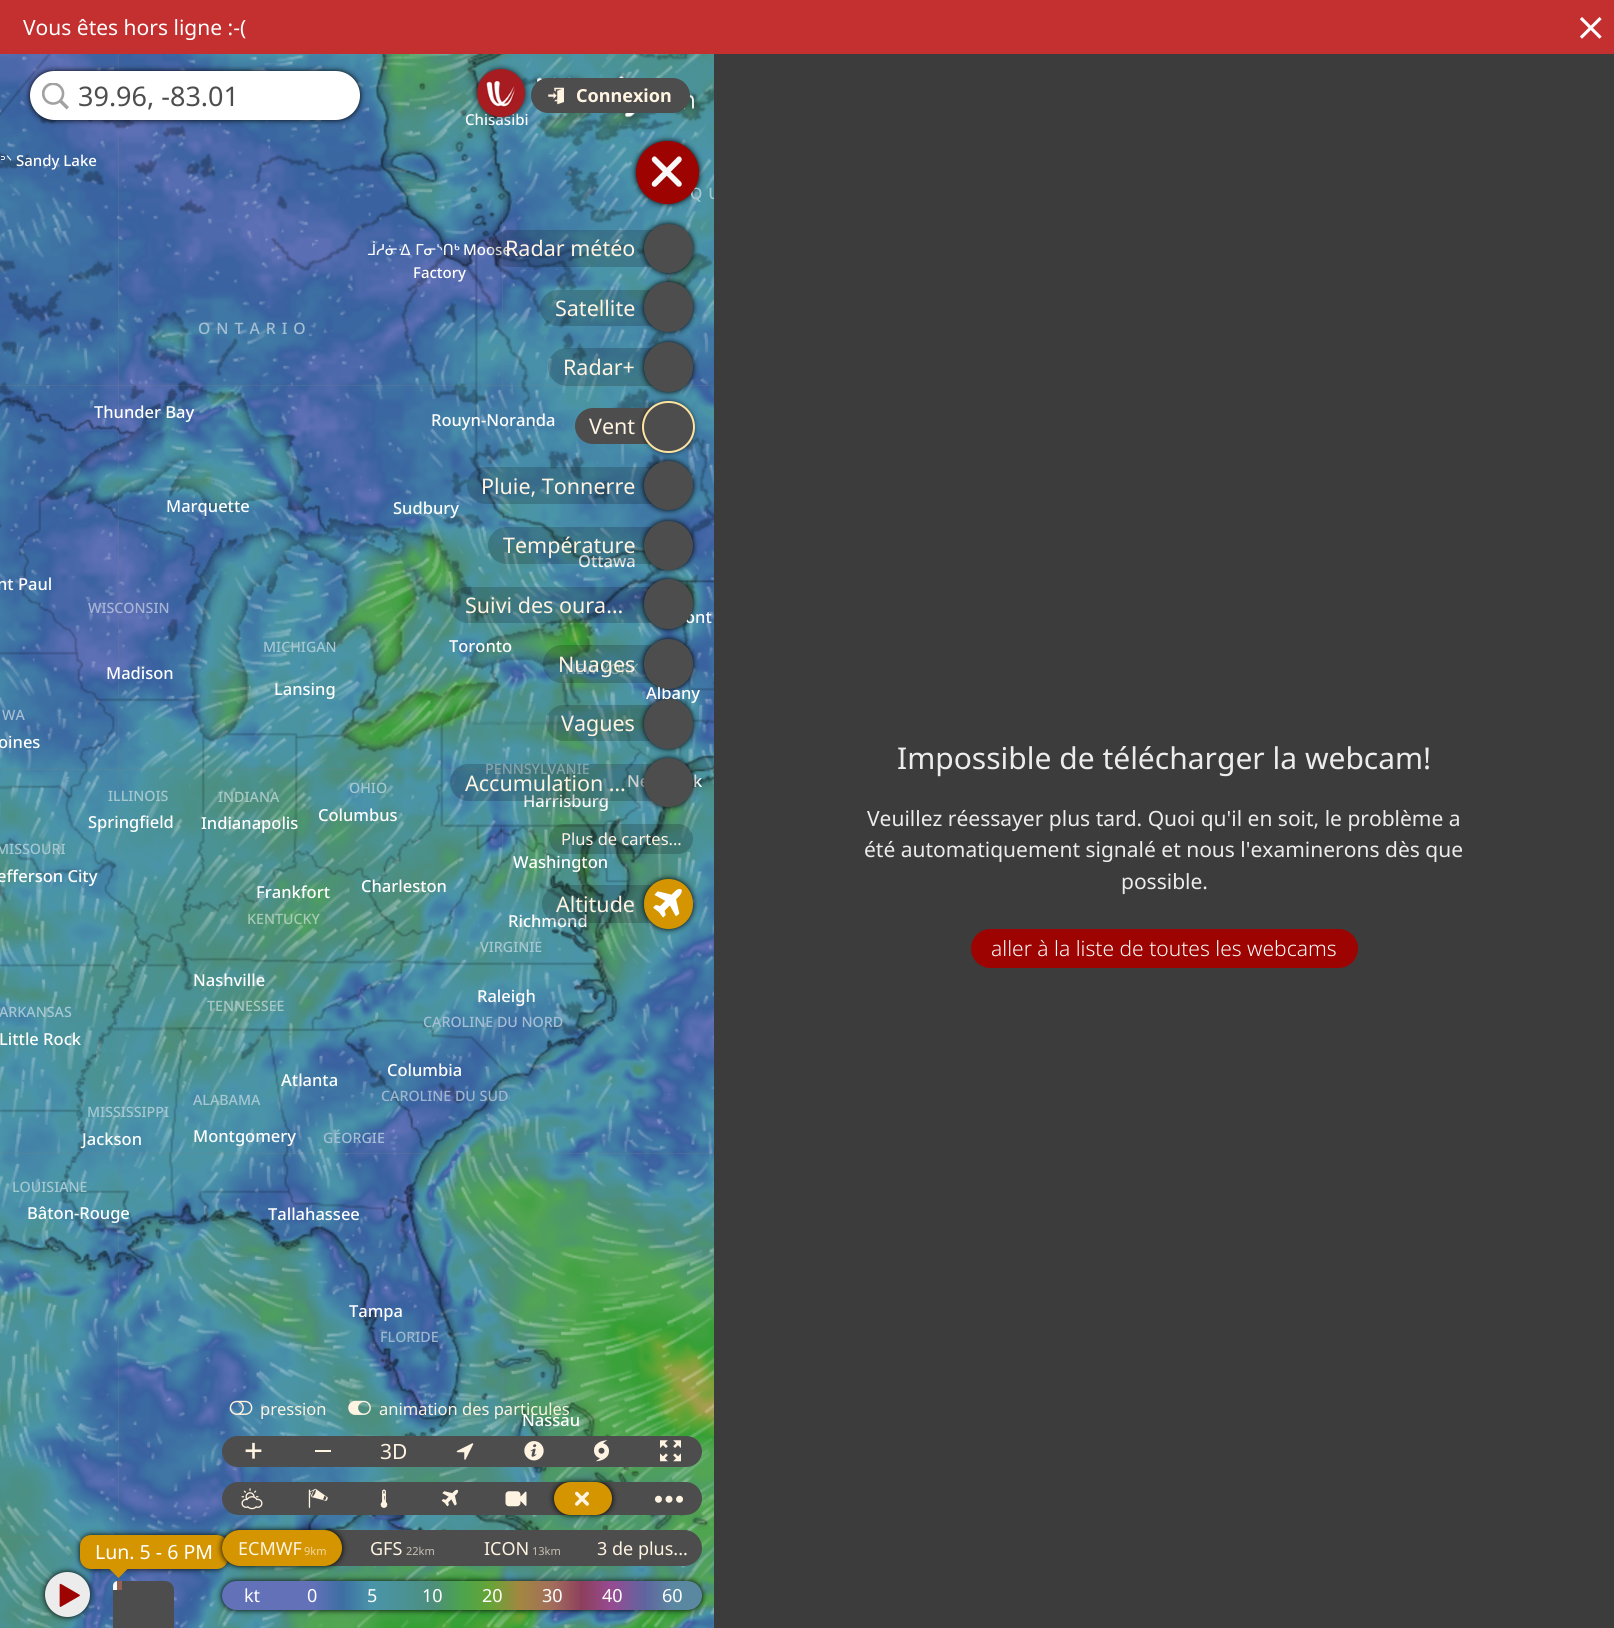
import math
import cairo


def use_color(cr, r, g, b):
  cr.set_source_rgb(r / 255, g / 255, b / 255)

def text(cr, x, y, s, family, size, color, bold=False, italic=False):
  cr.select_font_face(family, cairo.FONT_SLANT_ITALIC if italic else cairo.FONT_SLANT_NORMAL, cairo.FONT_WEIGHT_BOLD if bold else cairo.FONT_WEIGHT_NORMAL)
  cr.set_font_size(size)
  use_color(cr, *color)
  cr.move_to(x, y)
  cr.show_text(s)

def spaced_text(cr, x, y, s, letter, word):
  cr.move_to(x, y)
  for ch in s:
    cr.show_text(ch)
    cr.rel_move_to(letter + word * (ch == ' '), 0)

def box(cr, x, y, w, h, *color):
  use_color(cr, *color)
  cr.rectangle(x, y, w, h)
  cr.fill()

def round_rect(cr, x, y, w, h, r):
  cr.new_sub_path()
  for i, (u, v) in enumerate([(x + w - r, y + h - r), (x + r, y + h - r), (x + r, y + r), (x + w - r, y + r)]):
    cr.arc(u, v, r, i * math.pi / 2, (i + 1) * math.pi / 2)
  cr.close_path()

def shadow(cr, x, y, w, h, r, blur, alpha):
  cr.push_group_with_content(cairo.CONTENT_ALPHA)
  cr.set_operator(cairo.OPERATOR_SOURCE)
  for i in range(15, -16, -2):
    e = blur * i / 6
    if min(w, h) + 2 * e > 0:
      cr.set_source_rgba(0, 0, 0, alpha * math.erfc((i - 1) / 8.5) / 2)
      round_rect(cr, x - e, y - e, w + 2 * e, h + 2 * e, max(0, min(r + e + blur * .6, min(w, h) / 2 + e)))
      cr.fill()
  cr.mask(cr.pop_group())

def picture(cr, path, x, y, w, h):
  cr.save()
  cr.set_source_surface(cairo.ImageSurface.create_from_png(path), x, y)
  cr.rectangle(x, y, w, h)
  cr.fill()
  cr.restore()

def draw(cr):
  use_color(cr, 128, 128, 128)
  cr.paint()
  box(cr, 0, 0, 1614, 54, 196, 47, 47)
  picture(cr, "img_01.png", 1579, 17, 23, 22)
  picture(cr, "img_25.png", 118, 385, 385, 385)
  picture(cr, "img_28.png", 118, 769, 385, 385)
  picture(cr, "img_24.png", 0, 385, 119, 385)
  picture(cr, "img_26.png", 502, 385, 212, 385)
  picture(cr, "img_22.png", 118, 54, 385, 332)
  picture(cr, "img_21.png", 0, 54, 119, 332)
  picture(cr, "img_23.png", 502, 54, 212, 332)
  picture(cr, "img_27.png", 0, 769, 119, 385)
  picture(cr, "img_29.png", 502, 769, 212, 385)
  picture(cr, "img_31.png", 118, 1153, 385, 385)
  picture(cr, "img_30.png", 0, 1153, 119, 385)
  picture(cr, "img_32.png", 502, 1153, 212, 385)
  picture(cr, "img_34.png", 118, 1537, 385, 91)
  picture(cr, "img_33.png", 0, 1537, 119, 91)
  picture(cr, "img_35.png", 502, 1537, 212, 91)
  picture(cr, "img_36.png", 0, 54, 714, 1574)
  picture(cr, "img_41.png", 118, 385, 385, 385)
  picture(cr, "img_44.png", 118, 769, 385, 385)
  picture(cr, "img_42.png", 502, 385, 212, 385)
  picture(cr, "img_38.png", 118, 54, 385, 332)
  picture(cr, "img_37.png", 0, 54, 119, 332)
  use_color(cr, 0, 0, 0)
  shadow(cr, 30, 71, 330, 49, 24.5, 3, 1)
  use_color(cr, 255, 255, 255)
  round_rect(cr, 30, 71, 330, 49, 24.5)
  cr.fill()
  picture(cr, "img_02.png", 42, 83, 27, 27)
  picture(cr, "img_39.png", 502, 54, 212, 332)
  picture(cr, "img_04.png", 532, 72, 167, 50)
  use_color(cr, 77, 77, 77)
  round_rect(cr, 531, 78, 159, 35, 17.5)
  cr.fill()
  picture(cr, "img_05.png", 548, 87, 16, 18)
  use_color(cr, 0, 0, 0)
  shadow(cr, 636, 141, 63, 63, 31.5, 3, 1)
  cr.set_source_rgba(0, 0, 0, 0.18)
  cr.new_path()
  cr.move_to(558, 290)
  cr.line_to(665, 290)
  cr.line_to(665, 326)
  cr.line_to(558, 326)
  cr.curve_to(548, 326, 540, 318, 540, 308)
  cr.curve_to(540, 298, 548, 290, 558, 290)
  cr.close_path()
  cr.fill()
  cr.new_path()
  cr.move_to(567, 348)
  cr.line_to(665, 348)
  cr.line_to(665, 386)
  cr.line_to(567, 386)
  cr.curve_to(556.5, 386, 548, 377.5, 548, 367)
  cr.curve_to(548, 356.5, 556.5, 348, 567, 348)
  cr.close_path()
  cr.fill()
  use_color(cr, 0, 0, 0)
  shadow(cr, 644, 342, 49, 50, 24.5, 3, 1)
  use_color(cr, 77, 77, 77)
  round_rect(cr, 644, 342, 49, 50, 24.5)
  cr.fill()
  cr.new_path()
  cr.move_to(593, 408)
  cr.line_to(665, 408)
  cr.line_to(665, 444)
  cr.line_to(593, 444)
  cr.curve_to(583, 444, 575, 436, 575, 426)
  cr.curve_to(575, 416, 583, 408, 593, 408)
  cr.close_path()
  cr.fill()
  use_color(cr, 0, 0, 0)
  shadow(cr, 644, 402, 49, 50, 24.5, 3, 1)
  use_color(cr, 77, 77, 77)
  round_rect(cr, 643, 402, 51, 50, 25)
  cr.fill_preserve()
  use_color(cr, 255, 227, 161)
  cr.stroke()
  cr.set_source_rgba(0, 0, 0, 0.18)
  cr.new_path()
  cr.move_to(485.5, 467)
  cr.line_to(665, 467)
  cr.line_to(665, 504)
  cr.line_to(485.5, 504)
  cr.curve_to(475.5, 504, 467, 495.5, 467, 485.5)
  cr.curve_to(467, 475.5, 475.5, 467, 485.5, 467)
  cr.close_path()
  cr.fill()
  use_color(cr, 0, 0, 0)
  shadow(cr, 644, 461, 49, 49, 24.5, 3, 1)
  use_color(cr, 77, 77, 77)
  cr.arc(668.5, 485.5, 24.5, 0, 2 * math.pi)
  cr.fill()
  cr.set_source_rgba(0, 0, 0, 0.18)
  cr.new_path()
  cr.move_to(468, 587)
  cr.line_to(665, 587)
  cr.line_to(665, 623)
  cr.line_to(468, 623)
  cr.curve_to(458, 623, 450, 615, 450, 605)
  cr.curve_to(450, 595, 458, 587, 468, 587)
  cr.close_path()
  cr.fill()
  cr.new_path()
  cr.move_to(564, 705)
  cr.line_to(665, 705)
  cr.line_to(665, 741)
  cr.line_to(564, 741)
  cr.curve_to(554, 741, 546, 733, 546, 723)
  cr.curve_to(546, 713, 554, 705, 564, 705)
  cr.close_path()
  cr.fill()
  use_color(cr, 0, 0, 0)
  shadow(cr, 644, 699, 49, 50, 24.5, 3, 1)
  picture(cr, "img_45.png", 502, 769, 212, 323)
  cr.set_source_rgba(0, 0, 0, 0.18)
  round_rect(cr, 549, 824, 144, 30, 15)
  cr.fill()
  picture(cr, "img_43.png", 0, 770, 119, 384)
  picture(cr, "img_47.png", 118, 1153, 385, 377)
  picture(cr, "img_07.png", 229, 1400, 24, 15)
  picture(cr, "img_08.png", 348, 1400, 23, 15)
  picture(cr, "img_48.png", 502, 1343, 207, 187)
  use_color(cr, 77, 77, 77)
  round_rect(cr, 222, 1436, 480, 31, 15.5)
  cr.fill()
  picture(cr, "img_09.png", 245, 1442, 17, 17)
  box(cr, 315, 1450, 16, 2, 255, 243, 225)
  picture(cr, "img_10.png", 456, 1443, 18, 17)
  picture(cr, "img_11.png", 524, 1441, 20, 20)
  picture(cr, "img_12.png", 594, 1440, 15, 22)
  picture(cr, "img_13.png", 660, 1440, 21, 22)
  use_color(cr, 77, 77, 77)
  round_rect(cr, 222, 1482, 480, 33, 16.5)
  cr.fill()
  picture(cr, "img_14.png", 241, 1488, 22, 22)
  picture(cr, "img_15.png", 308, 1488, 20, 20)
  picture(cr, "img_16.png", 380, 1489, 8, 19)
  picture(cr, "img_17.png", 441, 1489, 18, 18)
  picture(cr, "img_18.png", 505, 1491, 22, 16)
  use_color(cr, 0, 0, 0)
  shadow(cr, 554, 1482, 58, 33, 16.5, 3, 1)
  use_color(cr, 212, 149, 0)
  round_rect(cr, 554, 1482, 58, 33, 16.5)
  cr.fill()
  picture(cr, "img_19.png", 575, 1491, 14, 15)
  picture(cr, "img_20.png", 655, 1495, 28, 8)
  use_color(cr, 0, 0, 0)
  shadow(cr, 45, 1572, 45, 45, 22.5, 3, 1)
  use_color(cr, 236, 236, 236)
  cr.arc(67.5, 1594.5, 22.5, 0, 2 * math.pi)
  cr.fill()
  use_color(cr, 0, 0, 0)
  shadow(cr, 80, 1535, 148, 34, 11, 3, 1)
  use_color(cr, 212, 149, 0)
  round_rect(cr, 80, 1535, 148, 34, 11)
  cr.fill()
  use_color(cr, 77, 77, 77)
  round_rect(cr, 222, 1530, 480, 36, 18)
  cr.fill()
  use_color(cr, 0, 0, 0)
  shadow(cr, 222, 1530, 120, 36, 18, 3, 1)
  use_color(cr, 212, 149, 0)
  round_rect(cr, 222, 1530, 120, 36, 18)
  cr.fill()
  use_color(cr, 0, 0, 0)
  shadow(cr, 222, 1581, 480, 29, 14.5, 3, 1)
  gradient = cairo.LinearGradient(222, 1595, 702, 1595)
  gradient.add_color_stop_rgba(0, 0.384, 0.443, 0.722, 1)
  gradient.add_color_stop_rgba(0.19, 0.384, 0.443, 0.722, 1)
  gradient.add_color_stop_rgba(0.25, 0.239, 0.431, 0.639, 1)
  gradient.add_color_stop_rgba(0.31, 0.29, 0.58, 0.667, 1)
  gradient.add_color_stop_rgba(0.38, 0.29, 0.573, 0.58, 1)
  gradient.add_color_stop_rgba(0.44, 0.302, 0.557, 0.486, 1)
  gradient.add_color_stop_rgba(0.5, 0.298, 0.643, 0.298, 1)
  gradient.add_color_stop_rgba(0.56, 0.404, 0.643, 0.212, 1)
  gradient.add_color_stop_rgba(0.62, 0.635, 0.529, 0.251, 1)
  gradient.add_color_stop_rgba(0.69, 0.635, 0.427, 0.361, 1)
  gradient.add_color_stop_rgba(0.75, 0.553, 0.247, 0.361, 1)
  gradient.add_color_stop_rgba(0.81, 0.592, 0.294, 0.569, 1)
  gradient.add_color_stop_rgba(0.88, 0.373, 0.392, 0.627, 1)
  gradient.add_color_stop_rgba(0.94, 0.357, 0.533, 0.631, 1)
  gradient.add_color_stop_rgba(1, 0.357, 0.533, 0.631, 1)
  cr.set_source(gradient)
  round_rect(cr, 222, 1581, 480, 29, 14.5)
  cr.fill()
  picture(cr, "img_40.png", 0, 386, 119, 384)
  picture(cr, "img_46.png", 0, 1154, 119, 118)
  use_color(cr, 212, 149, 0)
  cr.new_path()
  cr.move_to(109.5, 1569)
  cr.line_to(127.5, 1569)
  cr.line_to(118.5, 1578)
  cr.close_path()
  cr.fill()
  use_color(cr, 77, 77, 77)
  cr.new_path()
  cr.move_to(122, 1581)
  cr.line_to(165, 1581)
  cr.curve_to(170, 1581, 174, 1585, 174, 1590)
  cr.line_to(113, 1590)
  cr.curve_to(113, 1585, 117, 1581, 122, 1581)
  cr.close_path()
  cr.fill()
  use_color(cr, 248, 248, 248)
  cr.new_path()
  cr.move_to(118, 1581)
  cr.line_to(118, 1590)
  cr.line_to(113, 1590)
  cr.line_to(113, 1586)
  cr.curve_to(113, 1583, 115, 1581, 118, 1581)
  cr.close_path()
  cr.fill()
  box(cr, 117, 1581, 5, 9, 148, 96, 81)
  box(cr, 113, 1590, 61, 38, 77, 77, 77)
  picture(cr, "img_49.png", 59, 1583, 21, 24)
  text(cr, 23, 35, "Vous êtes hors ligne :-(", "Noto Sans", 21, (255, 255, 255))
  text(cr, 78, 106, "39.96, -83.01", "Noto Sans", 27, (77, 77, 77))
  text(cr, 576, 102, "Connexion", "Noto Sans", 18, (255, 243, 225), bold=True)
  text(cr, 555, 316, "Satellite", "Noto Sans", 21.5, (255, 243, 225))
  text(cr, 563, 375, "Radar+", "Noto Sans", 21.5, (255, 243, 225))
  text(cr, 589, 434, "Vent", "Noto Sans", 21.5, (255, 243, 225))
  text(cr, 481, 494, "Pluie, Tonnerre", "Noto Sans", 21.5, (255, 243, 225))
  text(cr, 465, 613, "Suivi des oura…", "Noto Sans", 21.5, (255, 243, 225))
  text(cr, 561, 731, "Vagues", "Noto Sans", 21.5, (255, 243, 225))
  text(cr, 561, 845, "Plus de cartes...", "Noto Sans", 16.5, (255, 243, 225))
  text(cr, 260, 1415, "pression", "Noto Sans", 16.5, (255, 243, 225))
  text(cr, 379, 1415, "animation des particules", "Noto Sans", 16.5, (255, 243, 225))
  text(cr, 380, 1459, "3D", "Noto Sans", 21, (255, 243, 225))
  text(cr, 238, 1555, "ECMWF", "Noto Sans", 18, (255, 243, 225))
  text(cr, 304, 1555, "9km", "Noto Sans", 11, (242, 215, 158))
  text(cr, 370, 1555, "GFS", "Noto Sans", 18, (255, 243, 225))
  text(cr, 406, 1555, "22km", "Noto Sans", 11, (202, 193, 181))
  text(cr, 484, 1555, "ICON", "Noto Sans", 18, (255, 243, 225))
  text(cr, 532, 1555, "13km", "Noto Sans", 11, (202, 193, 181))
  text(cr, 597, 1555, "3 de plus...", "Noto Sans", 18, (255, 243, 225))
  text(cr, 244, 1602, "kt", "Noto Sans", 18, (255, 255, 255))
  text(cr, 307, 1602, "0", "Noto Sans", 18, (255, 255, 255))
  text(cr, 367, 1602, "5", "Noto Sans", 18, (255, 255, 255))
  text(cr, 422, 1602, "10", "Noto Sans", 18, (255, 255, 255))
  text(cr, 482, 1602, "20", "Noto Sans", 18, (255, 255, 255))
  text(cr, 542, 1602, "30", "Noto Sans", 18, (255, 255, 255))
  text(cr, 602, 1602, "40", "Noto Sans", 18, (255, 255, 255))
  text(cr, 662, 1602, "60", "Noto Sans", 18, (255, 255, 255))
  text(cr, 0, 166, "ᐣᐠ", "DejaVu Sans", 15, (255, 255, 255))
  text(cr, 16, 166, "Sandy Lake", "Noto Sans Medium", 15, (255, 255, 255))
  text(cr, 465, 125, "Chisasibi", "Noto Sans Medium", 15, (255, 255, 255))
  picture(cr, "img_03.png", 472, 63, 59, 60)
  text(cr, 367, 255, "ᒨᓱᓃᐎ ᒥᓂᔅᑎᒃ", "DejaVu Sans", 15, (255, 255, 255))
  text(cr, 463, 255, "Moose", "Noto Sans Medium", 15, (255, 255, 255))
  cr.set_source_rgba(0, 0, 0, 0.18)
  cr.new_path()
  cr.move_to(509.5, 230)
  cr.line_to(665, 230)
  cr.line_to(665, 267)
  cr.line_to(509.5, 267)
  cr.curve_to(499.5, 267, 491, 258.5, 491, 248.5)
  cr.curve_to(491, 238.5, 499.5, 230, 509.5, 230)
  cr.close_path()
  cr.fill()
  use_color(cr, 0, 0, 0)
  shadow(cr, 644, 224, 49, 49, 24.5, 3, 1)
  use_color(cr, 77, 77, 77)
  cr.arc(668.5, 248.5, 24.5, 0, 2 * math.pi)
  cr.fill()
  use_color(cr, 0, 0, 0)
  shadow(cr, 644, 282, 49, 50, 24.5, 3, 1)
  use_color(cr, 77, 77, 77)
  round_rect(cr, 644, 282, 49, 50, 24.5)
  cr.fill()
  text(cr, 505, 256, "Radar météo", "Noto Sans", 21.5, (255, 243, 225))
  text(cr, 413, 278, "Factory", "Noto Sans Medium", 15, (255, 255, 255))
  cr.set_font_size(15.75)
  use_color(cr, 164, 190, 212)
  spaced_text(cr, 198, 334, "ONTARIO", 6, 0)
  use_color(cr, 165, 199, 209)
  spaced_text(cr, 690, 199, "QU", 6, 0)
  box(cr, 714, 54, 900, 1574, 60, 60, 60)
  use_color(cr, 157, 3, 0)
  round_rect(cr, 971, 929, 387, 39, 19.5)
  cr.fill()
  text(cr, 991, 956, "aller à la liste de toutes les webcams", "Noto Sans Light", 21, (248, 248, 248))
  text(cr, 1121, 889, "possible.", "Noto Sans", 21, (236, 236, 236))
  text(cr, 864, 857, "été automatiquement signalé et nous l'examinerons dès que", "Noto Sans", 21, (236, 236, 236))
  text(cr, 867, 826, "Veuillez réessayer plus tard. Quoi qu'il en soit, le problème a", "Noto Sans", 21, (236, 236, 236))
  text(cr, 897, 769, "Impossible de télécharger la webcam!", "Noto Sans", 30, (236, 236, 236))
  use_color(cr, 157, 3, 0)
  cr.new_path()
  cr.arc(667.5, 172.5, 31.5, 0, 2 * math.pi)
  cr.fill()
  use_color(cr, 248, 248, 248)
  cr.new_path()
  cr.move_to(656.5, 157.5)
  cr.line_to(681, 182)
  cr.curve_to(682, 183, 682, 185, 681, 186)
  cr.curve_to(680, 187, 678, 187, 677, 186)
  cr.line_to(652.5, 161.5)
  cr.curve_to(651.5, 160, 651.5, 158.5, 652.5, 157.5)
  cr.curve_to(653.5, 156, 655.5, 156, 656.5, 157.5)
  cr.close_path()
  cr.fill()
  cr.new_path()
  cr.move_to(652.5, 182)
  cr.line_to(677, 157.5)
  cr.curve_to(678, 156, 680, 156, 681, 157.5)
  cr.curve_to(682, 158.5, 682, 160, 681, 161.5)
  cr.line_to(656.5, 186)
  cr.curve_to(655.5, 187, 653.5, 187, 652.5, 186)
  cr.curve_to(651.5, 185, 651.5, 183, 652.5, 182)
  cr.close_path()
  cr.fill()
  text(cr, -3, 590, "nt Paul", "Noto Sans Medium", 16.5, (255, 255, 255))
  text(cr, 2, 720, "WA", "Noto Sans Medium", 14.25, (164, 190, 212))
  text(cr, -2, 748, "oines", "Noto Sans Medium", 16.5, (255, 255, 255))
  text(cr, 94, 418, "Thunder Bay", "Noto Sans Medium", 16.5, (255, 255, 255))
  text(cr, 431, 426, "Rouyn-Noranda", "Noto Sans Medium", 16.5, (255, 255, 255))
  text(cr, 166, 512, "Marquette", "Noto Sans Medium", 16.5, (255, 255, 255))
  text(cr, 393, 514, "Sudbury", "Noto Sans Medium", 16.5, (255, 255, 255))
  text(cr, 88, 613, "WISCONSIN", "Noto Sans Medium", 14.25, (168, 181, 214))
  text(cr, 263, 652, "MICHIGAN", "Noto Sans Medium", 14.25, (165, 199, 209))
  text(cr, 449, 652, "Toronto", "Noto Sans Medium", 16.5, (255, 255, 255))
  text(cr, 106, 679, "Madison", "Noto Sans Medium", 16.5, (255, 255, 255))
  text(cr, 274, 695, "Lansing", "Noto Sans Medium", 16.5, (255, 255, 255))
  text(cr, 578, 567, "Ottawa", "Noto Sans Medium", 16.5, (255, 255, 255))
  cr.set_source_rgba(0, 0, 0, 0.18)
  cr.new_path()
  cr.move_to(506.5, 527)
  cr.line_to(665, 527)
  cr.line_to(665, 564)
  cr.line_to(506.5, 564)
  cr.curve_to(496.5, 564, 488, 555.5, 488, 545.5)
  cr.curve_to(488, 535.5, 496.5, 527, 506.5, 527)
  cr.close_path()
  cr.fill()
  use_color(cr, 0, 0, 0)
  shadow(cr, 644, 521, 49, 49, 24.5, 3, 1)
  use_color(cr, 77, 77, 77)
  cr.arc(668.5, 545.5, 24.5, 0, 2 * math.pi)
  cr.fill()
  use_color(cr, 0, 0, 0)
  shadow(cr, 644, 579, 49, 50, 24.5, 3, 1)
  text(cr, 503, 553, "Température", "Noto Sans", 21.5, (255, 243, 225))
  text(cr, 685, 623, "ont", "Noto Sans Medium", 16.5, (255, 255, 255))
  use_color(cr, 77, 77, 77)
  round_rect(cr, 644, 579, 49, 50, 24.5)
  cr.fill()
  text(cr, 565, 674, "NEW YORK", "Noto Sans Medium", 14.25, (165, 199, 209))
  cr.set_source_rgba(0, 0, 0, 0.18)
  cr.new_path()
  cr.move_to(562, 645)
  cr.line_to(665, 645)
  cr.line_to(665, 683)
  cr.line_to(562, 683)
  cr.curve_to(551.5, 683, 543, 674.5, 543, 664)
  cr.curve_to(543, 653.5, 551.5, 645, 562, 645)
  cr.close_path()
  cr.fill()
  use_color(cr, 0, 0, 0)
  shadow(cr, 644, 639, 49, 50, 24.5, 3, 1)
  text(cr, 558, 672, "Nuages", "Noto Sans", 21.5, (255, 243, 225))
  text(cr, 646, 699, "Albany", "Noto Sans Medium", 16.5, (255, 255, 255))
  use_color(cr, 77, 77, 77)
  round_rect(cr, 644, 699, 49, 50, 24.5)
  cr.fill()
  round_rect(cr, 644, 639, 49, 50, 24.5)
  cr.fill()
  text(cr, -4, 854, "MISSOURI", "Noto Sans Medium", 14.25, (165, 199, 209))
  text(cr, -3, 882, "efferson City", "Noto Sans Medium", 16.5, (255, 255, 255))
  text(cr, -1, 1017, "ARKANSAS", "Noto Sans Medium", 14.25, (165, 199, 209))
  text(cr, -1, 1045, "Little Rock", "Noto Sans Medium", 16.5, (255, 255, 255))
  text(cr, 82, 1145, "Jackson", "Noto Sans Medium", 16.5, (255, 255, 255))
  text(cr, 349, 793, "OHIO", "Noto Sans Medium", 14.25, (165, 199, 209))
  text(cr, 108, 801, "ILLINOIS", "Noto Sans Medium", 14.25, (165, 199, 209))
  text(cr, 218, 802, "INDIANA", "Noto Sans Medium", 14.25, (168, 201, 197))
  text(cr, 88, 828, "Springfield", "Noto Sans Medium", 16.5, (255, 255, 255))
  text(cr, 201, 829, "Indianapolis", "Noto Sans Medium", 16.5, (255, 255, 255))
  text(cr, 318, 821, "Columbus", "Noto Sans Medium", 16.5, (255, 255, 255))
  text(cr, 256, 898, "Frankfort", "Noto Sans Medium", 16.5, (255, 255, 255))
  text(cr, 361, 892, "Charleston", "Noto Sans Medium", 16.5, (255, 255, 255))
  text(cr, 247, 924, "KENTUCKY", "Noto Sans Medium", 14.25, (167, 203, 184))
  text(cr, 193, 986, "Nashville", "Noto Sans Medium", 16.5, (255, 255, 255))
  text(cr, 207, 1011, "TENNESSEE", "Noto Sans Medium", 14.25, (168, 201, 197))
  text(cr, 423, 1027, "CAROLINE DU NORD", "Noto Sans Medium", 14.25, (164, 190, 212))
  text(cr, 387, 1076, "Columbia", "Noto Sans Medium", 16.5, (255, 255, 255))
  text(cr, 281, 1086, "Atlanta", "Noto Sans Medium", 16.5, (255, 255, 255))
  text(cr, 193, 1105, "ALABAMA", "Noto Sans Medium", 14.25, (165, 199, 209))
  text(cr, 381, 1101, "CAROLINE DU SUD", "Noto Sans Medium", 14.25, (159, 182, 207))
  text(cr, 87, 1117, "MISSISSIPPI", "Noto Sans Medium", 14.25, (165, 199, 209))
  text(cr, 193, 1142, "Montgomery", "Noto Sans Medium", 16.5, (255, 255, 255))
  text(cr, 323, 1143, "GÉORGIE", "Noto Sans Medium", 14.25, (164, 190, 212))
  text(cr, 485, 774, "PENNSYLVANIE", "Noto Sans Medium", 14.25, (165, 199, 209))
  text(cr, 627, 787, "Ne", "Noto Sans Medium", 16.5, (255, 255, 255))
  text(cr, 693, 787, "k", "Noto Sans Medium", 16.5, (255, 255, 255))
  text(cr, 523, 807, "Harrisburg", "Noto Sans Medium", 16.5, (255, 255, 255))
  cr.set_source_rgba(0, 0, 0, 0.18)
  cr.new_path()
  cr.move_to(468.5, 764)
  cr.line_to(665, 764)
  cr.line_to(665, 801)
  cr.line_to(468.5, 801)
  cr.curve_to(458.5, 801, 450, 792.5, 450, 782.5)
  cr.curve_to(450, 772.5, 458.5, 764, 468.5, 764)
  cr.close_path()
  cr.fill()
  use_color(cr, 0, 0, 0)
  shadow(cr, 644, 758, 49, 49, 24.5, 3, 1)
  use_color(cr, 77, 77, 77)
  cr.arc(668.5, 782.5, 24.5, 0, 2 * math.pi)
  cr.fill()
  text(cr, 465, 791, "Accumulation …", "Noto Sans", 21.5, (255, 243, 225))
  text(cr, 513, 868, "Washington", "Noto Sans Medium", 16.5, (255, 255, 255))
  text(cr, 508, 927, "Richmond", "Noto Sans Medium", 16.5, (255, 255, 255))
  cr.set_source_rgba(0, 0, 0, 0.18)
  cr.new_path()
  cr.move_to(561, 885)
  cr.line_to(665, 885)
  cr.line_to(665, 923)
  cr.line_to(561, 923)
  cr.curve_to(550.5, 923, 542, 914.5, 542, 904)
  cr.curve_to(542, 893.5, 550.5, 885, 561, 885)
  cr.close_path()
  cr.fill()
  use_color(cr, 0, 0, 0)
  shadow(cr, 644, 879, 49, 50, 24.5, 3, 1)
  use_color(cr, 212, 149, 0)
  round_rect(cr, 644, 879, 49, 50, 24.5)
  cr.fill()
  picture(cr, "img_06.png", 653, 888, 29, 30)
  text(cr, 556, 912, "Altitude", "Noto Sans", 21.5, (255, 243, 225))
  text(cr, 480, 952, "VIRGINIE", "Noto Sans Medium", 14.25, (165, 199, 209))
  text(cr, 477, 1002, "Raleigh", "Noto Sans Medium", 16.5, (255, 255, 255))
  text(cr, 12, 1192, "LOUISIANE", "Noto Sans Medium", 14.25, (165, 199, 209))
  text(cr, 27, 1219, "Bâton-Rouge", "Noto Sans Medium", 16.5, (255, 255, 255))
  text(cr, 268, 1220, "Tallahassee", "Noto Sans Medium", 16.5, (255, 255, 255))
  text(cr, 349, 1317, "Tampa", "Noto Sans Medium", 16.5, (255, 255, 255))
  text(cr, 380, 1342, "FLORIDE", "Noto Sans Medium", 14.25, (159, 182, 207))
  text(cr, 522, 1426, "Nassau", "Noto Sans Medium", 16.5, (255, 255, 255))
  text(cr, 95, 1559, "Lun. 5 - 6 PM", "Noto Sans", 19.5, (255, 255, 255))


surface = cairo.ImageSurface(cairo.FORMAT_RGB24, 1614, 1628)
cr = cairo.Context(surface)
options = cairo.FontOptions()
options.set_hint_metrics(cairo.HINT_METRICS_OFF)
options.set_hint_style(cairo.HINT_STYLE_NONE)
cr.set_font_options(options)
cr.set_miter_limit(4)
draw(cr)
surface.write_to_png("out.png")
